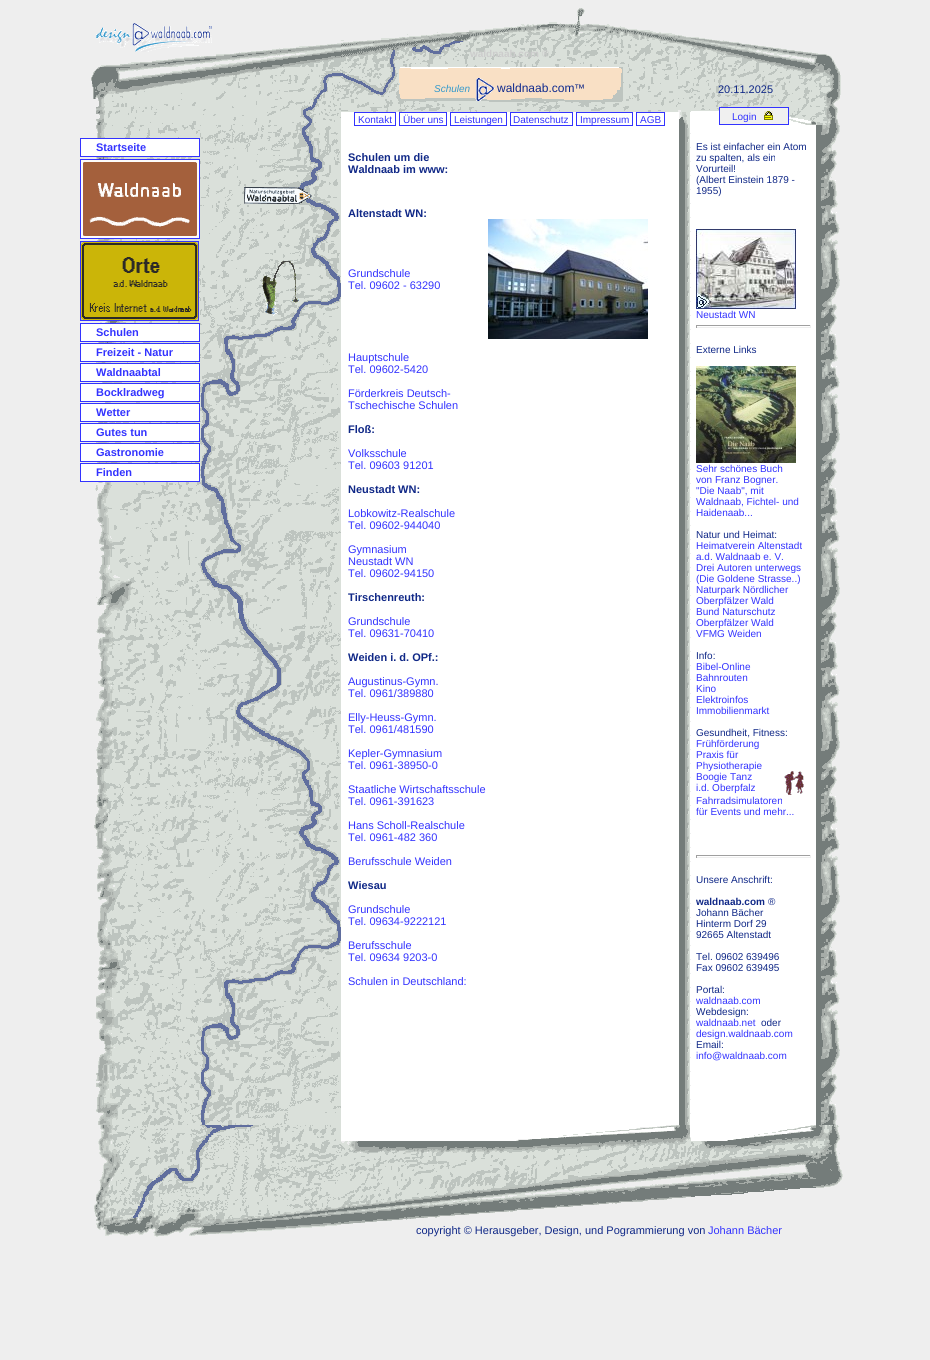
import math
import cairo


def use_color(cr, r, g, b):
  cr.set_source_rgb(r / 255, g / 255, b / 255)

def text(cr, x, y, s, family, size, color, bold=False, italic=False):
  cr.select_font_face(family, cairo.FONT_SLANT_ITALIC if italic else cairo.FONT_SLANT_NORMAL, cairo.FONT_WEIGHT_BOLD if bold else cairo.FONT_WEIGHT_NORMAL)
  cr.set_font_size(size)
  use_color(cr, *color)
  cr.move_to(x, y)
  cr.show_text(s)

def box(cr, x, y, w, h, *color):
  use_color(cr, *color)
  cr.rectangle(x, y, w, h)
  cr.fill()

def picture(cr, path, x, y, w, h):
  cr.save()
  cr.set_source_surface(cairo.ImageSurface.create_from_png(path), x, y)
  cr.rectangle(x, y, w, h)
  cr.fill()
  cr.restore()

def draw(cr):
  use_color(cr, 238, 238, 238)
  cr.paint()
  picture(cr, "img_01.png", 100, 43, 241, 24)
  picture(cr, "img_02.png", 96, 23, 116, 29)
  picture(cr, "img_03.png", 341, 8, 337, 59)
  picture(cr, "img_04.png", 678, 35, 13, 32)
  picture(cr, "img_05.png", 691, 37, 125, 30)
  picture(cr, "img_06.png", 816, 53, 21, 14)
  picture(cr, "img_07.png", 91, 67, 250, 58)
  picture(cr, "img_08.png", 341, 67, 337, 58)
  picture(cr, "img_09.png", 476, 78, 19, 23)
  box(cr, 341, 125, 337, 1000, 255, 255, 255)
  cr.rectangle(354.5, 112.5, 41, 13)
  use_color(cr, 51, 51, 255)
  cr.set_line_width(1)
  cr.stroke()
  cr.rectangle(399.5, 112.5, 47, 13)
  cr.stroke()
  cr.rectangle(450.5, 112.5, 56, 13)
  cr.stroke()
  cr.rectangle(510.5, 112.5, 62, 13)
  cr.stroke()
  cr.rectangle(576.5, 112.5, 56, 13)
  cr.stroke()
  cr.rectangle(636.5, 112.5, 28, 13)
  cr.stroke()
  picture(cr, "img_10.png", 678, 67, 13, 58)
  picture(cr, "img_11.png", 691, 67, 125, 58)
  use_color(cr, 240, 240, 240)
  cr.rectangle(719.5, 107.5, 69, 17)
  cr.fill_preserve()
  use_color(cr, 51, 51, 255)
  cr.stroke()
  picture(cr, "img_12.png", 764, 111, 9, 9)
  picture(cr, "img_13.png", 816, 67, 25, 58)
  picture(cr, "img_14.png", 94, 125, 107, 1000)
  use_color(cr, 255, 255, 255)
  cr.rectangle(80.5, 138.5, 119, 18)
  cr.fill_preserve()
  use_color(cr, 51, 51, 255)
  cr.stroke()
  picture(cr, "img_15.png", 80, 159, 120, 80)
  picture(cr, "img_16.png", 80, 241, 119, 80)
  use_color(cr, 255, 255, 255)
  cr.rectangle(80.5, 323.5, 119, 18)
  cr.fill_preserve()
  use_color(cr, 51, 51, 255)
  cr.stroke()
  use_color(cr, 255, 255, 255)
  cr.rectangle(80.5, 343.5, 119, 18)
  cr.fill_preserve()
  use_color(cr, 51, 51, 255)
  cr.stroke()
  use_color(cr, 255, 255, 255)
  cr.rectangle(80.5, 363.5, 119, 18)
  cr.fill_preserve()
  use_color(cr, 51, 51, 255)
  cr.stroke()
  use_color(cr, 255, 255, 255)
  cr.rectangle(80.5, 383.5, 119, 18)
  cr.fill_preserve()
  use_color(cr, 51, 51, 255)
  cr.stroke()
  use_color(cr, 255, 255, 255)
  cr.rectangle(80.5, 403.5, 119, 18)
  cr.fill_preserve()
  use_color(cr, 51, 51, 255)
  cr.stroke()
  use_color(cr, 255, 255, 255)
  cr.rectangle(80.5, 423.5, 119, 18)
  cr.fill_preserve()
  use_color(cr, 51, 51, 255)
  cr.stroke()
  use_color(cr, 255, 255, 255)
  cr.rectangle(80.5, 443.5, 119, 18)
  cr.fill_preserve()
  use_color(cr, 51, 51, 255)
  cr.stroke()
  use_color(cr, 255, 255, 255)
  cr.rectangle(80.5, 463.5, 119, 18)
  cr.fill_preserve()
  use_color(cr, 51, 51, 255)
  cr.stroke()
  picture(cr, "img_17.png", 201, 125, 140, 1000)
  picture(cr, "img_18.png", 244, 187, 68, 17)
  picture(cr, "img_19.png", 262, 261, 37, 55)
  picture(cr, "img_20.png", 488, 219, 160, 120)
  picture(cr, "img_21.png", 678, 125, 13, 1000)
  box(cr, 691, 125, 125, 1000, 255, 255, 255)
  picture(cr, "img_22.png", 696, 229, 100, 80)
  box(cr, 696, 325, 115, 1, 159, 159, 159)
  box(cr, 810, 325, 1, 3, 238, 238, 238)
  box(cr, 696, 327, 115, 1, 238, 238, 238)
  box(cr, 696, 325, 1, 3, 159, 159, 159)
  picture(cr, "img_23.png", 696, 366, 100, 97)
  picture(cr, "img_24.png", 784, 771, 20, 24)
  box(cr, 696, 855, 115, 1, 159, 159, 159)
  box(cr, 810, 855, 1, 3, 238, 238, 238)
  box(cr, 696, 857, 115, 1, 238, 238, 238)
  box(cr, 696, 855, 1, 3, 159, 159, 159)
  picture(cr, "img_25.png", 816, 125, 24, 1000)
  picture(cr, "img_26.png", 96, 1125, 245, 75)
  picture(cr, "img_27.png", 341, 1125, 337, 75)
  picture(cr, "img_28.png", 678, 1125, 13, 73)
  picture(cr, "img_29.png", 691, 1125, 125, 72)
  picture(cr, "img_30.png", 816, 1125, 27, 63)
  picture(cr, "img_31.png", 94, 1200, 247, 37)
  picture(cr, "img_32.png", 341, 1200, 307, 24)
  text(cr, 470, 57, "waldnaab.com ®", "Liberation Sans", 10, (204, 204, 204), bold=True)
  text(cr, 434, 92, "Schulen", "Liberation Sans", 10, (51, 153, 204), italic=True)
  text(cr, 497, 92, "waldnaab.com", "Liberation Sans", 12, (14, 41, 142))
  text(cr, 574, 92, "™", "Liberation Sans", 11, (16, 40, 135))
  text(cr, 358, 123, "Kontakt", "Liberation Sans", 10, (51, 51, 255))
  text(cr, 403, 123, "Über uns", "Liberation Sans", 10, (51, 51, 255))
  text(cr, 454, 123, "Leistungen", "Liberation Sans", 10, (51, 51, 255))
  text(cr, 513, 123, "Datenschutz", "Liberation Sans", 10, (51, 51, 255))
  text(cr, 580, 123, "Impressum", "Liberation Sans", 10, (51, 51, 255))
  text(cr, 640, 123, "AGB", "Liberation Sans", 10, (51, 51, 255))
  text(cr, 718, 93, "20.11.2025", "Liberation Sans", 11, (16, 40, 135))
  text(cr, 732, 120, "Login", "Liberation Sans", 10, (51, 51, 255))
  text(cr, 96, 151, "Startseite", "Liberation Sans", 11, (51, 51, 255), bold=True)
  text(cr, 96, 336, "Schulen", "Liberation Sans", 11, (51, 51, 255), bold=True)
  text(cr, 96, 356, "Freizeit - Natur", "Liberation Sans", 11, (51, 51, 255), bold=True)
  text(cr, 96, 376, "Waldnaabtal", "Liberation Sans", 11, (51, 51, 255), bold=True)
  text(cr, 96, 396, "Bocklradweg", "Liberation Sans", 11, (51, 51, 255), bold=True)
  text(cr, 96, 416, "Wetter", "Liberation Sans", 11, (51, 51, 255), bold=True)
  text(cr, 96, 436, "Gutes tun", "Liberation Sans", 11, (51, 51, 255), bold=True)
  text(cr, 96, 456, "Gastronomie", "Liberation Sans", 11, (51, 51, 255), bold=True)
  text(cr, 96, 476, "Finden", "Liberation Sans", 11, (51, 51, 255), bold=True)
  text(cr, 348, 161, "Schulen um die", "Liberation Sans", 11, (16, 40, 135), bold=True)
  text(cr, 348, 173, "Waldnaab im www:", "Liberation Sans", 11, (16, 40, 135), bold=True)
  text(cr, 348, 217, "Altenstadt WN:", "Liberation Sans", 11, (16, 40, 135), bold=True)
  text(cr, 348, 277, "Grundschule", "Liberation Sans", 11, (51, 51, 255))
  text(cr, 348, 289, "Tel. 09602 - 63290", "Liberation Sans", 11, (51, 51, 255))
  text(cr, 348, 361, "Hauptschule", "Liberation Sans", 11, (51, 51, 255))
  text(cr, 348, 373, "Tel. 09602-5420", "Liberation Sans", 11, (51, 51, 255))
  text(cr, 348, 397, "Förderkreis Deutsch-", "Liberation Sans", 11, (51, 51, 255))
  text(cr, 348, 409, "Tschechische Schulen", "Liberation Sans", 11, (51, 51, 255))
  text(cr, 348, 433, "Floß:", "Liberation Sans", 11, (16, 40, 135), bold=True)
  text(cr, 348, 457, "Volksschule", "Liberation Sans", 11, (51, 51, 255))
  text(cr, 348, 469, "Tel. 09603 91201", "Liberation Sans", 11, (51, 51, 255))
  text(cr, 348, 493, "Neustadt WN:", "Liberation Sans", 11, (16, 40, 135), bold=True)
  text(cr, 348, 517, "Lobkowitz-Realschule", "Liberation Sans", 11, (51, 51, 255))
  text(cr, 348, 529, "Tel. 09602-944040", "Liberation Sans", 11, (51, 51, 255))
  text(cr, 348, 553, "Gymnasium", "Liberation Sans", 11, (51, 51, 255))
  text(cr, 348, 565, "Neustadt WN", "Liberation Sans", 11, (51, 51, 255))
  text(cr, 348, 577, "Tel. 09602-94150", "Liberation Sans", 11, (51, 51, 255))
  text(cr, 348, 601, "Tirschenreuth:", "Liberation Sans", 11, (16, 40, 135), bold=True)
  text(cr, 348, 625, "Grundschule", "Liberation Sans", 11, (51, 51, 255))
  text(cr, 348, 637, "Tel. 09631-70410", "Liberation Sans", 11, (51, 51, 255))
  text(cr, 348, 661, "Weiden i. d. OPf.:", "Liberation Sans", 11, (16, 40, 135), bold=True)
  text(cr, 348, 685, "Augustinus-Gymn.", "Liberation Sans", 11, (51, 51, 255))
  text(cr, 348, 697, "Tel. 0961/389880", "Liberation Sans", 11, (51, 51, 255))
  text(cr, 348, 721, "Elly-Heuss-Gymn.", "Liberation Sans", 11, (51, 51, 255))
  text(cr, 348, 733, "Tel. 0961/481590", "Liberation Sans", 11, (51, 51, 255))
  text(cr, 348, 757, "Kepler-Gymnasium", "Liberation Sans", 11, (51, 51, 255))
  text(cr, 348, 769, "Tel. 0961-38950-0", "Liberation Sans", 11, (51, 51, 255))
  text(cr, 348, 793, "Staatliche Wirtschaftsschule", "Liberation Sans", 11, (51, 51, 255))
  text(cr, 348, 805, "Tel. 0961-391623", "Liberation Sans", 11, (51, 51, 255))
  text(cr, 348, 829, "Hans Scholl-Realschule", "Liberation Sans", 11, (51, 51, 255))
  text(cr, 348, 841, "Tel. 0961-482 360", "Liberation Sans", 11, (51, 51, 255))
  text(cr, 348, 865, "Berufsschule Weiden", "Liberation Sans", 11, (51, 51, 255))
  text(cr, 348, 889, "Wiesau", "Liberation Sans", 11, (16, 40, 135), bold=True)
  text(cr, 348, 913, "Grundschule", "Liberation Sans", 11, (51, 51, 255))
  text(cr, 348, 925, "Tel. 09634-9222121", "Liberation Sans", 11, (51, 51, 255))
  text(cr, 348, 949, "Berufsschule", "Liberation Sans", 11, (51, 51, 255))
  text(cr, 348, 961, "Tel. 09634 9203-0", "Liberation Sans", 11, (51, 51, 255))
  text(cr, 348, 985, "Schulen in Deutschland:", "Liberation Sans", 11, (51, 51, 255))
  text(cr, 696, 150, "Es ist einfacher ein Atom", "Liberation Sans", 10, (16, 40, 135))
  text(cr, 696, 161, "zu spalten, als ein", "Liberation Sans", 10, (16, 40, 135))
  text(cr, 696, 172, "Vorurteil!", "Liberation Sans", 10, (16, 40, 135))
  text(cr, 696, 183, "(Albert Einstein 1879 -", "Liberation Sans", 10, (16, 40, 135))
  text(cr, 696, 194, "1955)", "Liberation Sans", 10, (16, 40, 135))
  text(cr, 696, 318, "Neustadt WN", "Liberation Sans", 10, (51, 51, 255))
  text(cr, 696, 353, "Externe Links", "Liberation Sans", 10, (16, 40, 135))
  text(cr, 696, 472, "Sehr schönes Buch", "Liberation Sans", 10, (51, 51, 255))
  text(cr, 696, 483, "von Franz Bogner.", "Liberation Sans", 10, (51, 51, 255))
  text(cr, 696, 494, "\"Die Naab\", mit", "Liberation Sans", 10, (51, 51, 255))
  text(cr, 696, 505, "Waldnaab, Fichtel- und", "Liberation Sans", 10, (51, 51, 255))
  text(cr, 696, 516, "Haidenaab...", "Liberation Sans", 10, (51, 51, 255))
  text(cr, 696, 538, "Natur und Heimat:", "Liberation Sans", 10, (16, 40, 135))
  text(cr, 696, 549, "Heimatverein Altenstadt", "Liberation Sans", 10, (51, 51, 255))
  text(cr, 696, 560, "a.d. Waldnaab e. V.", "Liberation Sans", 10, (51, 51, 255))
  text(cr, 696, 571, "Drei Autoren unterwegs", "Liberation Sans", 10, (51, 51, 255))
  text(cr, 696, 582, "(Die Goldene Strasse..)", "Liberation Sans", 10, (51, 51, 255))
  text(cr, 696, 593, "Naturpark Nördlicher", "Liberation Sans", 10, (51, 51, 255))
  text(cr, 696, 604, "Oberpfälzer Wald", "Liberation Sans", 10, (51, 51, 255))
  text(cr, 696, 615, "Bund Naturschutz", "Liberation Sans", 10, (51, 51, 255))
  text(cr, 696, 626, "Oberpfälzer Wald", "Liberation Sans", 10, (51, 51, 255))
  text(cr, 696, 637, "VFMG Weiden", "Liberation Sans", 10, (51, 51, 255))
  text(cr, 696, 659, "Info:", "Liberation Sans", 10, (16, 40, 135))
  text(cr, 696, 670, "Bibel-Online", "Liberation Sans", 10, (51, 51, 255))
  text(cr, 696, 681, "Bahnrouten", "Liberation Sans", 10, (51, 51, 255))
  text(cr, 696, 692, "Kino", "Liberation Sans", 10, (51, 51, 255))
  text(cr, 696, 703, "Elektroinfos", "Liberation Sans", 10, (51, 51, 255))
  text(cr, 696, 714, "Immobilienmarkt", "Liberation Sans", 10, (51, 51, 255))
  text(cr, 696, 736, "Gesundheit, Fitness:", "Liberation Sans", 10, (16, 40, 135))
  text(cr, 696, 747, "Frühförderung", "Liberation Sans", 10, (51, 51, 255))
  text(cr, 696, 758, "Praxis für", "Liberation Sans", 10, (51, 51, 255))
  text(cr, 696, 769, "Physiotherapie", "Liberation Sans", 10, (51, 51, 255))
  text(cr, 696, 780, "Boogie Tanz", "Liberation Sans", 10, (51, 51, 255))
  text(cr, 696, 791, "i.d. Oberpfalz", "Liberation Sans", 10, (51, 51, 255))
  text(cr, 696, 804, "Fahrradsimulatoren", "Liberation Sans", 10, (51, 51, 255))
  text(cr, 696, 815, "für Events und mehr...", "Liberation Sans", 10, (51, 51, 255))
  text(cr, 696, 883, "Unsere Anschrift:", "Liberation Sans", 10, (16, 40, 135))
  text(cr, 696, 905, "waldnaab.com", "Liberation Sans", 10, (16, 40, 135), bold=True)
  text(cr, 768, 905, "®", "Liberation Sans", 10, (16, 40, 135))
  text(cr, 696, 916, "Johann Bächer", "Liberation Sans", 10, (16, 40, 135))
  text(cr, 696, 927, "Hinterm Dorf 29", "Liberation Sans", 10, (16, 40, 135))
  text(cr, 696, 938, "92665 Altenstadt", "Liberation Sans", 10, (16, 40, 135))
  text(cr, 696, 960, "Tel. 09602 639496", "Liberation Sans", 10, (16, 40, 135))
  text(cr, 696, 971, "Fax 09602 639495", "Liberation Sans", 10, (16, 40, 135))
  text(cr, 696, 993, "Portal:", "Liberation Sans", 10, (16, 40, 135))
  text(cr, 696, 1004, "waldnaab.com", "Liberation Sans", 10, (51, 51, 255))
  text(cr, 696, 1015, "Webdesign:", "Liberation Sans", 10, (16, 40, 135))
  text(cr, 696, 1026, "waldnaab.net", "Liberation Sans", 10, (51, 51, 255))
  text(cr, 761, 1026, "oder", "Liberation Sans", 10, (16, 40, 135))
  text(cr, 696, 1037, "design.waldnaab.com", "Liberation Sans", 10, (51, 51, 255))
  text(cr, 696, 1048, "Email:", "Liberation Sans", 10, (16, 40, 135))
  text(cr, 696, 1059, "info@waldnaab.com", "Liberation Sans", 10, (51, 51, 255))
  text(cr, 416, 1234, "copyright © Herausgeber, Design, und Pogrammierung von", "Liberation Sans", 11, (16, 40, 135))
  text(cr, 708, 1234, "Johann Bächer", "Liberation Sans", 11, (51, 51, 255))


surface = cairo.ImageSurface(cairo.FORMAT_RGB24, 930, 1360)
cr = cairo.Context(surface)
options = cairo.FontOptions()
options.set_hint_metrics(cairo.HINT_METRICS_OFF)
options.set_hint_style(cairo.HINT_STYLE_NONE)
cr.set_font_options(options)
cr.set_miter_limit(4)
draw(cr)
surface.write_to_png("out.png")
